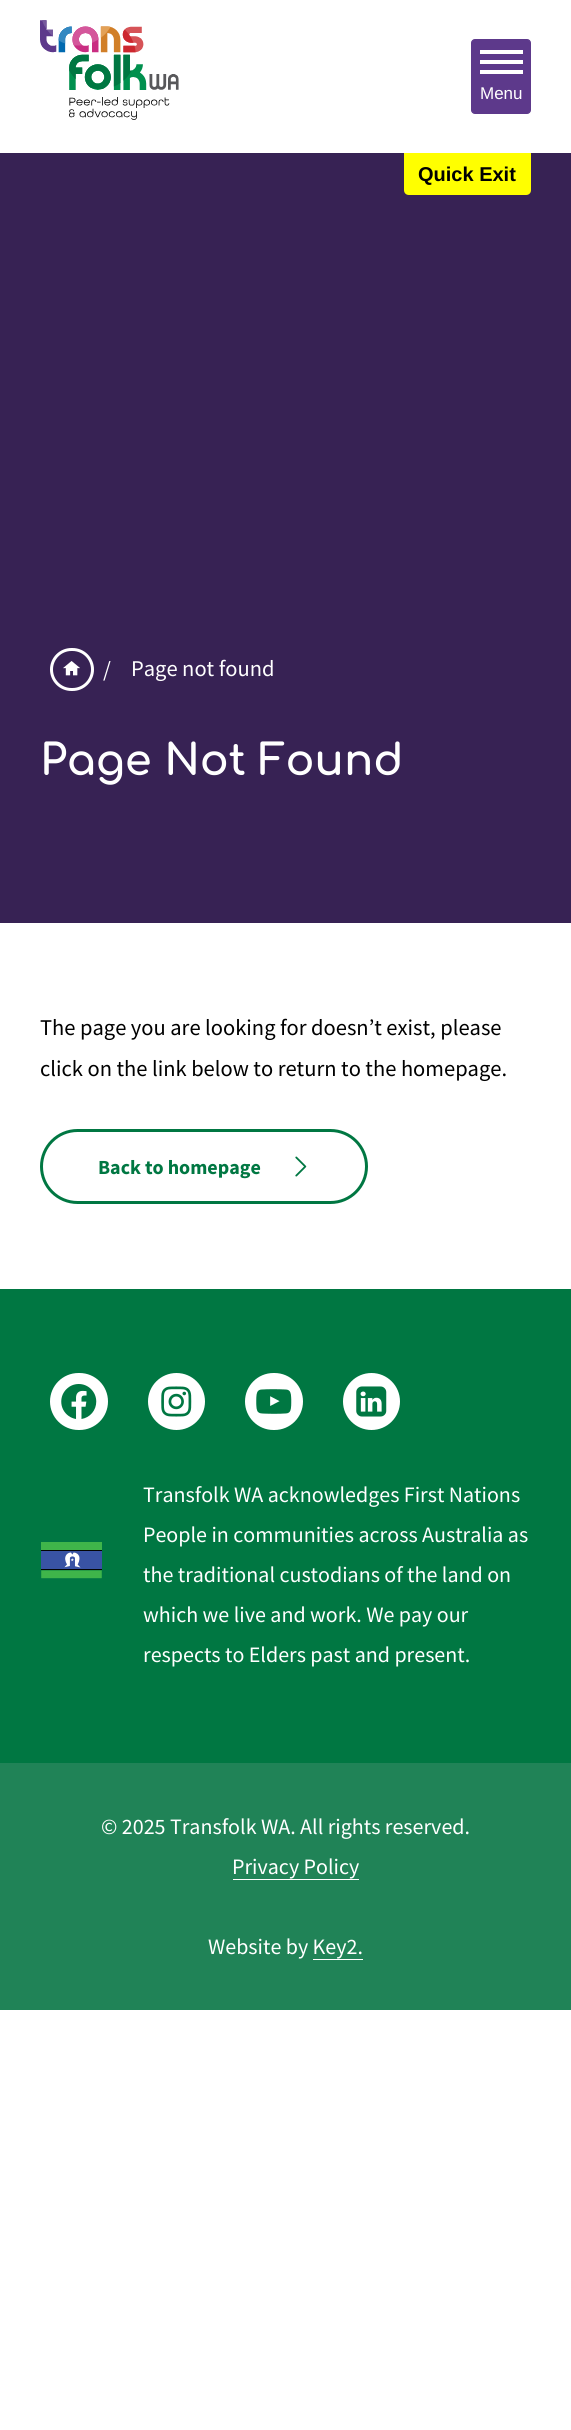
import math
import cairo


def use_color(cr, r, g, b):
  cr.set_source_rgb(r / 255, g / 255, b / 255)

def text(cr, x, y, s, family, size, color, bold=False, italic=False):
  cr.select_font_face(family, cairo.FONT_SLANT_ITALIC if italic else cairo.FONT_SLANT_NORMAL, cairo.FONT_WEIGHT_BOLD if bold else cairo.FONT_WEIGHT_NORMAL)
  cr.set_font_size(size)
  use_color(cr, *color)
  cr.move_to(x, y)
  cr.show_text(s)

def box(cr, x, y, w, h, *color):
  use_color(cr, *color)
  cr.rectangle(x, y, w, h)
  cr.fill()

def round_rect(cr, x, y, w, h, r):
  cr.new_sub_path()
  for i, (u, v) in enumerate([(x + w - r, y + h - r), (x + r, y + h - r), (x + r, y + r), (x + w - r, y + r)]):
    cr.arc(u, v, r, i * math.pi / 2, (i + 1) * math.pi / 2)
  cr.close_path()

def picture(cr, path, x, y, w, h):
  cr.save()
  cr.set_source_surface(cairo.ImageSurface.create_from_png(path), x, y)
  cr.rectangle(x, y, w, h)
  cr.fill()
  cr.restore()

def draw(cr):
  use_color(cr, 255, 255, 255)
  cr.paint()
  picture(cr, "img_01.png", 40, 20, 139, 100)
  use_color(cr, 93, 57, 139)
  round_rect(cr, 471.5, 39.5, 59, 74, 3.5)
  cr.fill_preserve()
  cr.set_line_width(1)
  cr.stroke()
  box(cr, 480, 50, 43, 4, 255, 255, 255)
  box(cr, 480, 60, 43, 4, 255, 255, 255)
  box(cr, 480, 70, 43, 4, 255, 255, 255)
  box(cr, 0, 153, 571, 770, 55, 34, 84)
  use_color(cr, 255, 255, 0)
  cr.new_path()
  cr.move_to(404, 153)
  cr.line_to(531, 153)
  cr.line_to(531, 190)
  cr.curve_to(531, 193, 529, 195, 526, 195)
  cr.line_to(409, 195)
  cr.curve_to(406, 195, 404, 193, 404, 190)
  cr.close_path()
  cr.fill()
  round_rect(cr, 51.5, 649.5, 41, 40, 20)
  use_color(cr, 255, 255, 255)
  cr.set_line_width(3)
  cr.stroke()
  picture(cr, "img_02.png", 63, 661, 17, 15)
  round_rect(cr, 41.5, 1130.5, 325, 72, 36)
  use_color(cr, 0, 119, 66)
  cr.stroke()
  picture(cr, "img_03.png", 295, 1156, 12, 21)
  box(cr, 0, 1289, 571, 474, 0, 119, 66)
  use_color(cr, 255, 255, 255)
  round_rect(cr, 52, 1375, 54, 53, 26.5)
  cr.fill_preserve()
  cr.set_line_width(4)
  cr.stroke()
  picture(cr, "img_04.png", 61, 1384, 36, 35)
  cr.arc(176.5, 1401.5, 26.5, 0, 2 * math.pi)
  cr.fill_preserve()
  cr.stroke()
  picture(cr, "img_05.png", 161, 1386, 31, 31)
  round_rect(cr, 247, 1375, 54, 53, 26.5)
  cr.fill_preserve()
  cr.stroke()
  picture(cr, "img_06.png", 256, 1389, 36, 25)
  cr.arc(371.5, 1401.5, 26.5, 0, 2 * math.pi)
  cr.fill_preserve()
  cr.stroke()
  picture(cr, "img_07.png", 356, 1386, 31, 31)
  picture(cr, "img_08.png", 41, 1542, 61, 37)
  box(cr, 0, 1763, 571, 247, 32, 131, 87)
  box(cr, 233, 1879, 126, 1, 255, 255, 255)
  box(cr, 313, 1959, 50, 1, 255, 255, 255)
  text(cr, 480, 99, "Menu", "Liberation Sans", 17, (255, 255, 255))
  text(cr, 418, 181, "Quick Exit", "Liberation Sans", 20, (0, 0, 0), bold=True)
  text(cr, 103, 677, "/", "Source Sans Pro", 22.5, (255, 255, 255))
  text(cr, 131, 676, "Page not found", "Source Sans Pro", 22.5, (255, 255, 255))
  text(cr, 40, 775, "Page Not Found", "Comfortaa", 43, (255, 255, 255), bold=True)
  text(cr, 40, 1035, "The page you are looking for doesn’t exist, please", "Source Sans Pro", 22.5, (0, 0, 0))
  text(cr, 40, 1076, "click on the link below to return to the homepage.", "Source Sans Pro", 22.5, (0, 0, 0))
  text(cr, 98, 1174, "Back to homepage", "Source Sans Pro", 20, (0, 119, 66), bold=True)
  text(cr, 143, 1502, "Transfolk WA acknowledges First Nations", "Source Sans Pro", 22, (255, 255, 255))
  text(cr, 143, 1542, "People in communities across Australia as", "Source Sans Pro", 22, (255, 255, 255))
  text(cr, 143, 1582, "the traditional custodians of the land on", "Source Sans Pro", 22, (255, 255, 255))
  text(cr, 143, 1622, "which we live and work. We pay our", "Source Sans Pro", 22, (255, 255, 255))
  text(cr, 143, 1662, "respects to Elders past and present.", "Source Sans Pro", 22, (255, 255, 255))
  text(cr, 101, 1834, "© 2025 Transfolk WA. All rights reserved.", "Source Sans Pro", 22, (255, 255, 255))
  text(cr, 232, 1874, "Privacy Policy", "Source Sans Pro", 22, (255, 255, 255))
  text(cr, 208, 1954, "Website by Key2.", "Source Sans Pro", 22, (255, 255, 255))


surface = cairo.ImageSurface(cairo.FORMAT_RGB24, 571, 2430)
cr = cairo.Context(surface)
options = cairo.FontOptions()
options.set_hint_metrics(cairo.HINT_METRICS_OFF)
options.set_hint_style(cairo.HINT_STYLE_NONE)
cr.set_font_options(options)
cr.set_miter_limit(4)
draw(cr)
surface.write_to_png("out.png")
